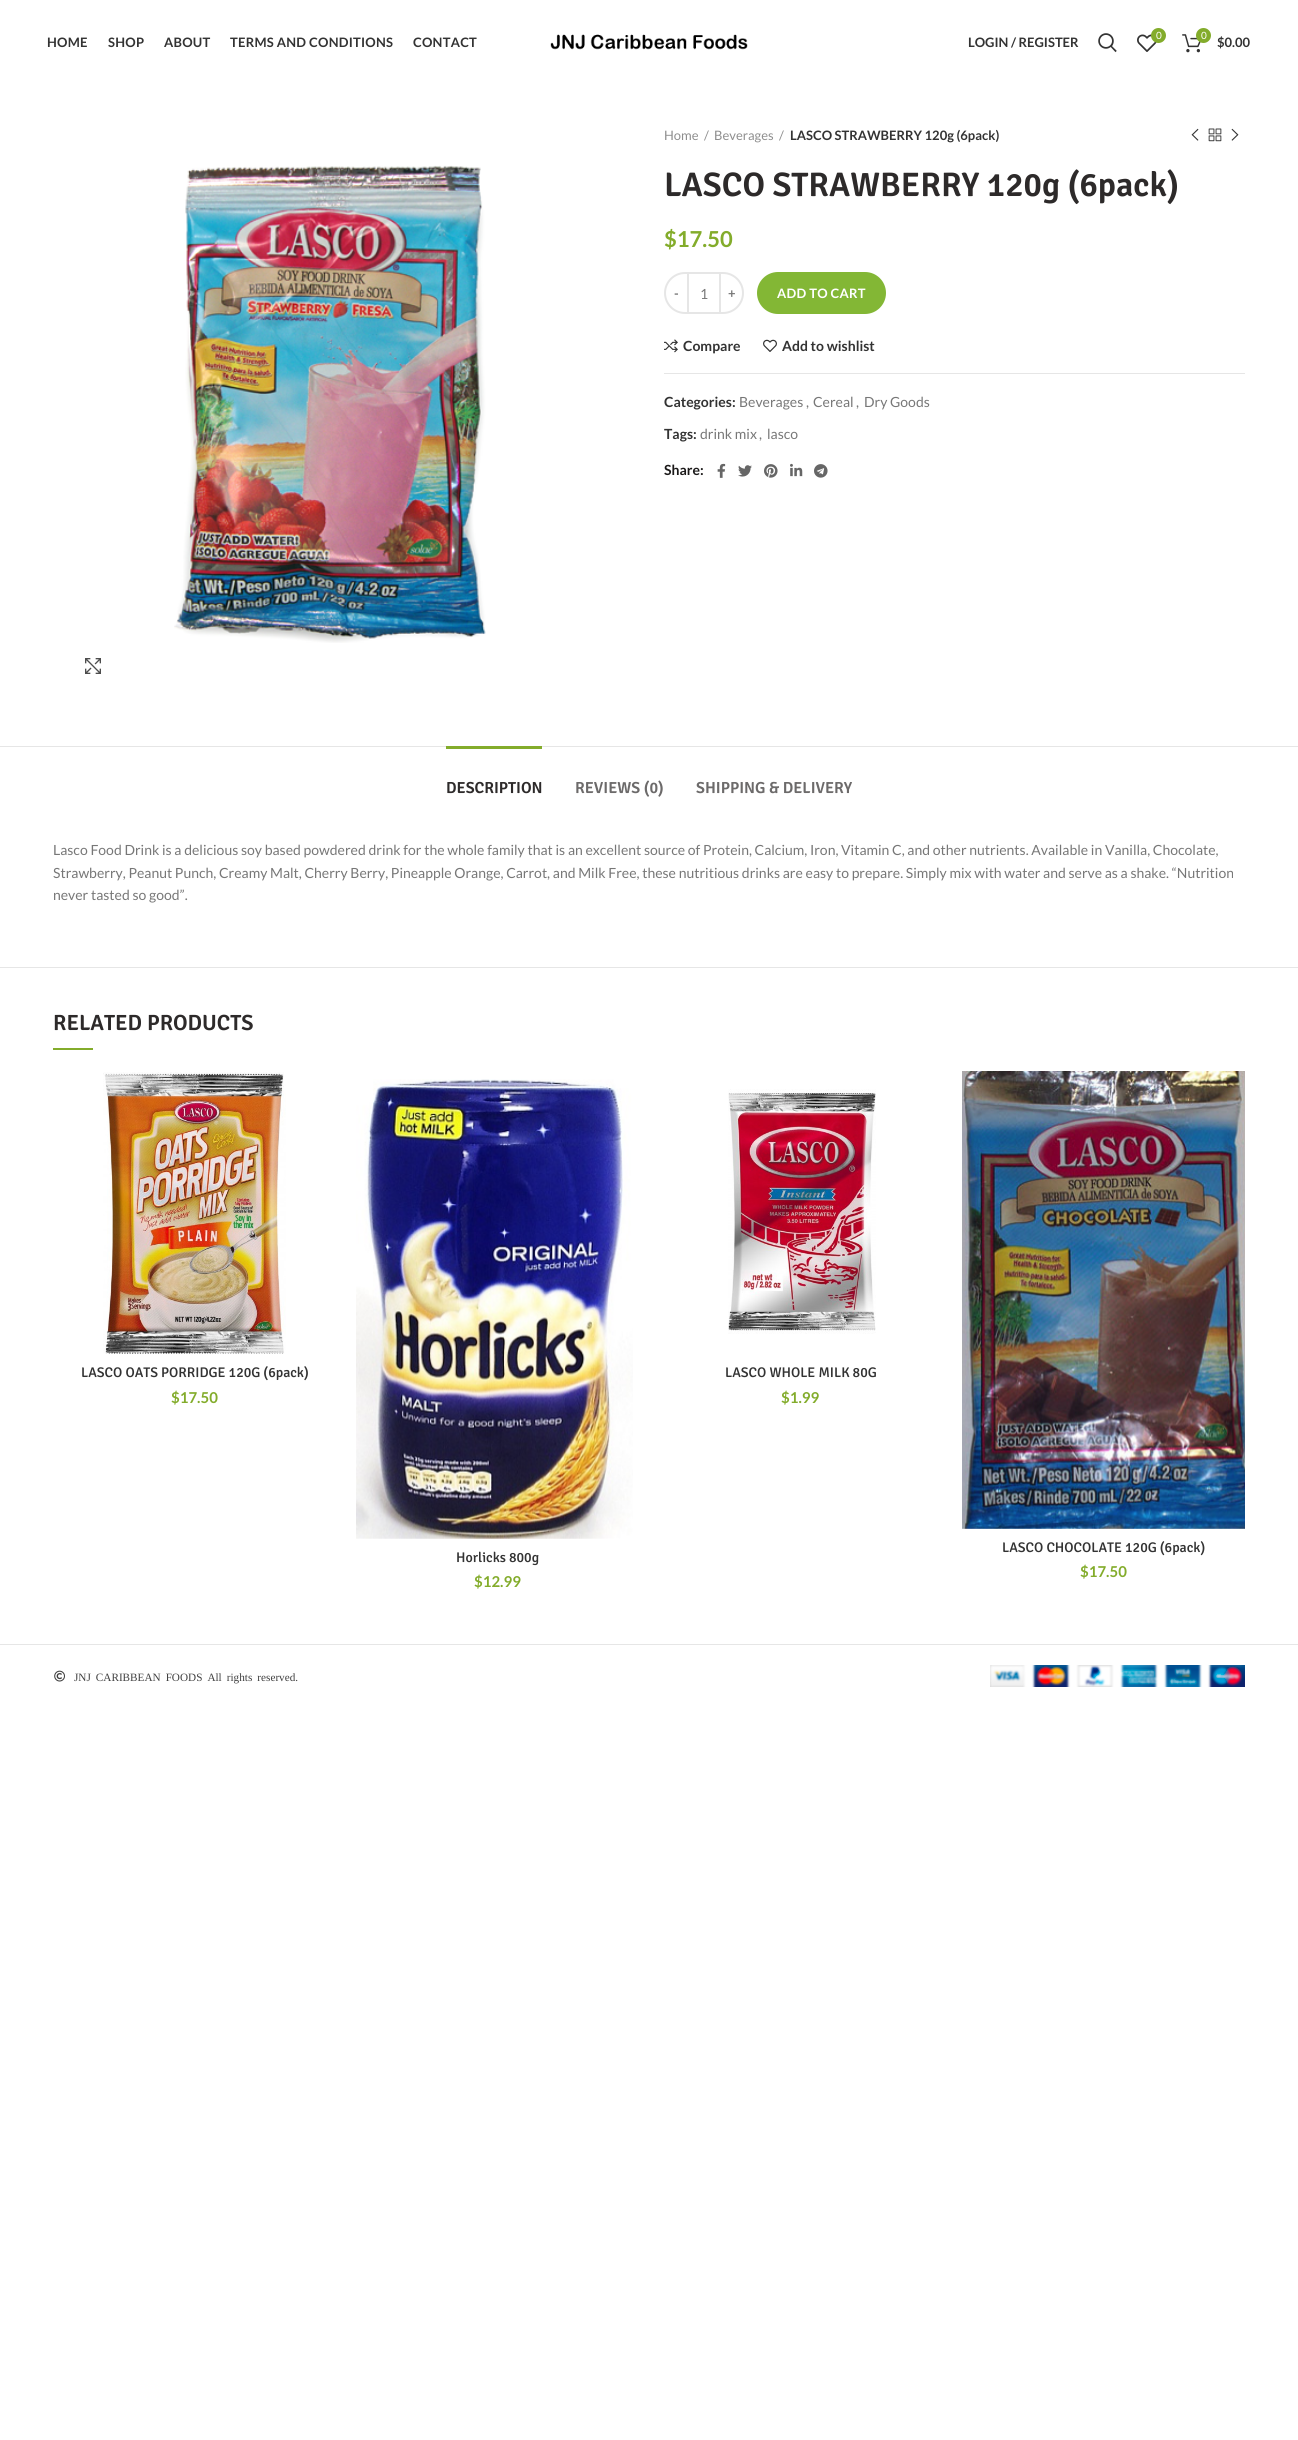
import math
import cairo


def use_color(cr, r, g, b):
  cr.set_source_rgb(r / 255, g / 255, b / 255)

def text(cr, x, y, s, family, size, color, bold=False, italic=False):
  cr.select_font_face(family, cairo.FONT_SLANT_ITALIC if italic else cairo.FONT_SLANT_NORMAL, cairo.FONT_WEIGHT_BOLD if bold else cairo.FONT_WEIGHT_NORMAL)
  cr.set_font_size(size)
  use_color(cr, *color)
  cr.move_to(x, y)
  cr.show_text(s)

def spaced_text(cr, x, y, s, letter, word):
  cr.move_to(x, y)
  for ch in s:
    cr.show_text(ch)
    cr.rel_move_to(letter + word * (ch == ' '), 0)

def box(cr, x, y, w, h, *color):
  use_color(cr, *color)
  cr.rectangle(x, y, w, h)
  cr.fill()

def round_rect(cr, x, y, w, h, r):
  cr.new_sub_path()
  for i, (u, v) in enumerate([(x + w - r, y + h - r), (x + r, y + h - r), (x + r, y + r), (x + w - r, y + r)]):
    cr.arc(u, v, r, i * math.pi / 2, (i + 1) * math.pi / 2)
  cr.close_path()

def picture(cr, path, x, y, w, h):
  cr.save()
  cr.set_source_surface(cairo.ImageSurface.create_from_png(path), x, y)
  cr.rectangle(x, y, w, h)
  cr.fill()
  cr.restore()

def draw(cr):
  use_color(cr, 255, 255, 255)
  cr.paint()
  picture(cr, "img_01.png", 550, 34, 198, 16)
  picture(cr, "img_02.png", 1098, 33, 19, 20)
  picture(cr, "img_03.png", 1137, 34, 20, 18)
  use_color(cr, 131, 172, 43)
  cr.arc(1158.5, 35.5, 7.5, 0, 2 * math.pi)
  cr.fill()
  picture(cr, "img_04.png", 1182, 34, 19, 19)
  cr.arc(1203.5, 35.5, 7.5, 0, 2 * math.pi)
  cr.fill()
  picture(cr, "img_05.png", 174, 165, 312, 478)
  picture(cr, "img_06.png", 85, 658, 16, 16)
  picture(cr, "img_07.png", 1191, 128, 8, 13)
  picture(cr, "img_08.png", 1208, 128, 14, 14)
  picture(cr, "img_09.png", 1231, 128, 8, 13)
  cr.new_path()
  cr.move_to(685, 273)
  cr.line_to(688, 273)
  cr.line_to(688, 313)
  cr.line_to(685, 313)
  cr.curve_to(674, 313, 665, 304, 665, 293)
  cr.curve_to(665, 282, 674, 273, 685, 273)
  cr.close_path()
  use_color(cr, 230, 230, 230)
  cr.stroke()
  box(cr, 689, 272, 30, 2, 230, 230, 230)
  box(cr, 689, 312, 30, 2, 230, 230, 230)
  cr.new_path()
  cr.move_to(720, 273)
  cr.line_to(723, 273)
  cr.curve_to(734, 273, 743, 282, 743, 293)
  cr.curve_to(743, 304, 734, 313, 723, 313)
  cr.line_to(720, 313)
  cr.close_path()
  cr.stroke()
  use_color(cr, 131, 183, 53)
  round_rect(cr, 757, 272, 129, 42, 21)
  cr.fill()
  picture(cr, "img_10.png", 664, 339, 14, 14)
  picture(cr, "img_11.png", 763, 339, 14, 13)
  box(cr, 664, 373, 581, 1, 230, 230, 230)
  picture(cr, "img_12.png", 717, 463, 9, 15)
  picture(cr, "img_13.png", 738, 465, 14, 12)
  picture(cr, "img_14.png", 764, 464, 14, 14)
  picture(cr, "img_15.png", 790, 463, 13, 14)
  picture(cr, "img_16.png", 814, 464, 14, 14)
  box(cr, 0, 746, 1298, 1, 230, 230, 230)
  box(cr, 0, 967, 1298, 1, 230, 230, 230)
  box(cr, 446, 746, 96, 3, 131, 172, 43)
  box(cr, 53, 1048, 40, 2, 131, 172, 43)
  picture(cr, "img_17.png", 103, 1072, 183, 282)
  picture(cr, "img_18.png", 728, 1089, 148, 245)
  picture(cr, "img_19.png", 356, 1079, 277, 460)
  picture(cr, "img_20.png", 962, 1071, 283, 458)
  box(cr, 0, 1644, 1298, 1, 230, 230, 230)
  picture(cr, "img_21.png", 54, 1670, 11, 12)
  picture(cr, "img_22.png", 990, 1665, 255, 22)
  cr.select_font_face("Lato", cairo.FONT_SLANT_NORMAL, cairo.FONT_WEIGHT_BOLD)
  cr.set_font_size(13)
  use_color(cr, 51, 51, 51)
  spaced_text(cr, 47, 47, "HOME", 0.25, 0)
  spaced_text(cr, 108, 47, "SHOP", 0.25, 0)
  spaced_text(cr, 164, 47, "ABOUT", 0.25, 0)
  spaced_text(cr, 230, 47, "TERMS AND CONDITIONS", 0.25, 0)
  spaced_text(cr, 413, 47, "CONTACT", 0.25, 0)
  text(cr, 968, 47, "LOGIN / REGISTER", "Lato", 13, (51, 51, 51), bold=True)
  text(cr, 1156, 39, "0", "Lato", 10, (255, 255, 255))
  text(cr, 1201, 39, "0", "Lato", 10, (255, 255, 255))
  text(cr, 1217, 47, "$0.00", "Lato", 13, (51, 51, 51), bold=True)
  text(cr, 664, 140, "Home", "Lato", 13, (142, 142, 142))
  text(cr, 704, 140, "/", "Lato", 13, (142, 142, 142))
  text(cr, 714, 140, "Beverages", "Lato", 13, (142, 142, 142))
  text(cr, 779, 140, "/", "Lato", 13, (142, 142, 142))
  text(cr, 790, 140, "LASCO STRAWBERRY 120g (6pack)", "Lato", 13, (51, 51, 51), bold=True)
  text(cr, 664, 196, "LASCO STRAWBERRY 120g (6pack)", "Signika SemiBold", 34, (45, 42, 42))
  text(cr, 664, 247, "$17.50", "Lato", 22, (131, 172, 43), bold=True)
  cr.set_font_size(13)
  use_color(cr, 119, 119, 119)
  spaced_text(cr, 674, 298, "-", 0.25, 0)
  text(cr, 700, 299, "1", "Lato", 14, (119, 119, 119))
  cr.select_font_face("Lato", cairo.FONT_SLANT_NORMAL, cairo.FONT_WEIGHT_BOLD)
  cr.set_font_size(13)
  spaced_text(cr, 728, 298, "+", 0.25, 0)
  use_color(cr, 255, 255, 255)
  spaced_text(cr, 777, 298, "ADD TO CART", 0.25, 0)
  text(cr, 683, 351, "Compare", "Lato", 14, (51, 51, 51), bold=True)
  text(cr, 782, 351, "Add to wishlist", "Lato", 14, (51, 51, 51), bold=True)
  text(cr, 664, 407, "Categories:", "Lato", 14, (51, 51, 51), bold=True)
  text(cr, 739, 407, "Beverages", "Lato", 14, (119, 119, 119))
  text(cr, 806, 407, ",", "Lato", 14, (119, 119, 119))
  text(cr, 813, 407, "Cereal", "Lato", 14, (119, 119, 119))
  text(cr, 856, 407, ",", "Lato", 14, (119, 119, 119))
  text(cr, 864, 407, "Dry Goods", "Lato", 14, (119, 119, 119))
  text(cr, 664, 439, "Tags:", "Lato", 14, (51, 51, 51), bold=True)
  text(cr, 700, 439, "drink mix", "Lato", 14, (119, 119, 119))
  text(cr, 759, 439, ",", "Lato", 14, (119, 119, 119))
  text(cr, 767, 439, "lasco", "Lato", 14, (119, 119, 119))
  text(cr, 664, 475, "Share:", "Lato", 14, (27, 25, 25), bold=True)
  text(cr, 446, 793, "DESCRIPTION", "Signika SemiBold", 16, (45, 42, 42))
  text(cr, 575, 793, "REVIEWS (0)", "Signika SemiBold", 16, (108, 106, 106))
  text(cr, 696, 793, "SHIPPING & DELIVERY", "Signika SemiBold", 16, (108, 106, 106))
  text(cr, 53, 855, "Lasco Food Drink is a delicious soy based powdered drink for the whole family that is an excellent source of Protein, Calcium, Iron, Vitamin C, and other nutrients. Available in Vanilla, Chocolate,", "Lato", 14, (119, 119, 119))
  text(cr, 53, 878, "Strawberry, Peanut Punch, Creamy Malt, Cherry Berry, Pineapple Orange, Carrot, and Milk Free, these nutritious drinks are easy to prepare. Simply mix with water and serve as a shake. “Nutrition", "Lato", 14, (119, 119, 119))
  text(cr, 53, 900, "never tasted so good”.", "Lato", 14, (119, 119, 119))
  text(cr, 53, 1030, "RELATED PRODUCTS", "Signika SemiBold", 22, (45, 42, 42))
  text(cr, 81, 1377, "LASCO OATS PORRIDGE 120G (6pack)", "Signika Medium", 14, (51, 51, 51))
  text(cr, 171, 1403, "$17.50", "Lato", 15, (131, 172, 43), bold=True)
  text(cr, 725, 1377, "LASCO WHOLE MILK 80G", "Signika Medium", 14, (51, 51, 51))
  text(cr, 781, 1403, "$1.99", "Lato", 15, (131, 172, 43), bold=True)
  text(cr, 456, 1562, "Horlicks 800g", "Signika Medium", 14, (51, 51, 51))
  text(cr, 474, 1587, "$12.99", "Lato", 15, (131, 172, 43), bold=True)
  text(cr, 1002, 1552, "LASCO CHOCOLATE 120G (6pack)", "Signika Medium", 14, (51, 51, 51))
  text(cr, 1080, 1577, "$17.50", "Lato", 15, (131, 172, 43), bold=True)
  cr.select_font_face("Liberation Serif")
  cr.set_font_size(11.2)
  use_color(cr, 63, 63, 63)
  spaced_text(cr, 74, 1681, "JNJ CARIBBEAN FOODS All rights reserved.", 0, 2.25)


surface = cairo.ImageSurface(cairo.FORMAT_RGB24, 1298, 2440)
cr = cairo.Context(surface)
options = cairo.FontOptions()
options.set_hint_metrics(cairo.HINT_METRICS_OFF)
options.set_hint_style(cairo.HINT_STYLE_NONE)
cr.set_font_options(options)
cr.set_miter_limit(4)
draw(cr)
surface.write_to_png("out.png")
